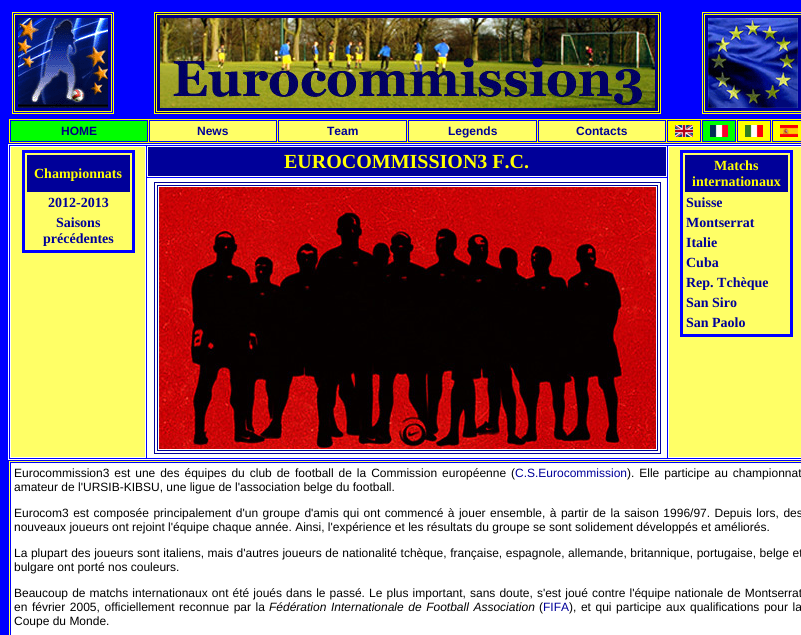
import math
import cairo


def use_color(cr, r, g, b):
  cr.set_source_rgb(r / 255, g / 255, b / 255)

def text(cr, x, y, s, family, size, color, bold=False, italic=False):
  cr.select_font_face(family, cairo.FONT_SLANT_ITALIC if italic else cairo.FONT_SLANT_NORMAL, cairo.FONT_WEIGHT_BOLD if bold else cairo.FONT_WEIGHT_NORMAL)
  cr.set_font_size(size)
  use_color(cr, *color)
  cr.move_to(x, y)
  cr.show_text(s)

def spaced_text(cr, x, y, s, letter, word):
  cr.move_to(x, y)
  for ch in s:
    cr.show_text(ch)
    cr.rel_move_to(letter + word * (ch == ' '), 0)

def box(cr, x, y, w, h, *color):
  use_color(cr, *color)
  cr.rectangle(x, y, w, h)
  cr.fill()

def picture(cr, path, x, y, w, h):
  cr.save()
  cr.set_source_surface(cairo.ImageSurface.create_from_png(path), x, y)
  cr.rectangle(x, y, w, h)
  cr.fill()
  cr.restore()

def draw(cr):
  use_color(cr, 0, 0, 255)
  cr.paint()
  cr.rectangle(12.5, 12.5, 101, 101)
  use_color(cr, 255, 255, 0)
  cr.set_line_width(1)
  cr.stroke()
  use_color(cr, 0, 0, 153)
  cr.rectangle(14.5, 14.5, 97, 97)
  cr.fill_preserve()
  use_color(cr, 255, 255, 0)
  cr.stroke()
  picture(cr, "img_01.png", 18, 18, 90, 90)
  use_color(cr, 0, 0, 128)
  cr.rectangle(154.5, 12.5, 506, 101)
  cr.fill_preserve()
  use_color(cr, 255, 255, 0)
  cr.stroke()
  cr.rectangle(156.5, 14.5, 502, 97)
  cr.stroke()
  picture(cr, "img_02.png", 160, 18, 495, 90)
  cr.rectangle(702.5, 12.5, 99, 101)
  cr.stroke()
  use_color(cr, 0, 0, 153)
  cr.rectangle(704.5, 14.5, 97, 97)
  cr.fill_preserve()
  use_color(cr, 255, 255, 0)
  cr.stroke()
  picture(cr, "img_03.png", 708, 18, 90, 90)
  box(cr, 9, 119, 792, 24, 255, 255, 0)
  use_color(cr, 0, 255, 0)
  cr.rectangle(10.5, 120.5, 137, 21)
  cr.fill_preserve()
  use_color(cr, 0, 0, 255)
  cr.stroke()
  use_color(cr, 255, 255, 102)
  cr.rectangle(149.5, 120.5, 127, 21)
  cr.fill_preserve()
  use_color(cr, 0, 0, 255)
  cr.stroke()
  use_color(cr, 255, 255, 102)
  cr.rectangle(278.5, 120.5, 128, 21)
  cr.fill_preserve()
  use_color(cr, 0, 0, 255)
  cr.stroke()
  use_color(cr, 255, 255, 102)
  cr.rectangle(408.5, 120.5, 128, 21)
  cr.fill_preserve()
  use_color(cr, 0, 0, 255)
  cr.stroke()
  use_color(cr, 255, 255, 102)
  cr.rectangle(538.5, 120.5, 127, 21)
  cr.fill_preserve()
  use_color(cr, 0, 0, 255)
  cr.stroke()
  cr.rectangle(667.5, 120.5, 33, 21)
  cr.stroke()
  picture(cr, "img_04.png", 675, 125, 18, 12)
  use_color(cr, 0, 255, 0)
  cr.rectangle(702.5, 120.5, 33, 21)
  cr.fill_preserve()
  use_color(cr, 0, 0, 255)
  cr.stroke()
  picture(cr, "img_05.png", 710, 125, 18, 12)
  cr.rectangle(737.5, 120.5, 33, 21)
  cr.stroke()
  picture(cr, "img_06.png", 745, 125, 18, 12)
  cr.rectangle(772.5, 120.5, 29, 21)
  cr.stroke()
  picture(cr, "img_07.png", 780, 125, 18, 12)
  cr.rectangle(8.5, 144.5, 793, 315)
  use_color(cr, 255, 255, 255)
  cr.stroke()
  use_color(cr, 255, 255, 102)
  cr.rectangle(10.5, 146.5, 135, 311)
  cr.fill_preserve()
  use_color(cr, 255, 255, 255)
  cr.stroke()
  cr.rectangle(23.5, 151.5, 110, 100)
  use_color(cr, 0, 0, 255)
  cr.set_line_width(3)
  cr.stroke()
  box(cr, 27, 155, 103, 37, 0, 0, 153)
  cr.rectangle(147.5, 146.5, 519, 30)
  cr.fill_preserve()
  use_color(cr, 255, 255, 255)
  cr.set_line_width(1)
  cr.stroke()
  use_color(cr, 255, 255, 102)
  cr.rectangle(668.5, 146.5, 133, 311)
  cr.fill_preserve()
  use_color(cr, 255, 255, 255)
  cr.stroke()
  cr.rectangle(681.5, 151.5, 110, 184)
  use_color(cr, 0, 0, 255)
  cr.set_line_width(3)
  cr.stroke()
  box(cr, 685, 155, 103, 37, 0, 0, 153)
  box(cr, 147, 178, 520, 280, 255, 255, 255)
  cr.rectangle(154.5, 182.5, 506, 271)
  use_color(cr, 0, 0, 153)
  cr.set_line_width(1)
  cr.stroke()
  cr.rectangle(157.5, 185.5, 500, 265)
  cr.stroke()
  picture(cr, "img_08.png", 159, 187, 497, 262)
  box(cr, 9, 461, 792, 174, 255, 255, 85)
  use_color(cr, 255, 255, 255)
  cr.rectangle(10.5, 462.5, 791, 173)
  cr.fill_preserve()
  use_color(cr, 0, 0, 255)
  cr.stroke()
  text(cr, 61, 135, "HOME", "Liberation Sans", 12, (0, 0, 128), bold=True)
  text(cr, 197, 135, "News", "Liberation Sans", 12, (0, 0, 153), bold=True)
  text(cr, 327, 135, "Team", "Liberation Sans", 12, (0, 0, 153), bold=True)
  text(cr, 448, 135, "Legends", "Liberation Sans", 12, (0, 0, 153), bold=True)
  text(cr, 576, 135, "Contacts", "Liberation Sans", 12, (0, 0, 153), bold=True)
  text(cr, 34, 178, "Championnats", "Liberation Serif", 14, (255, 255, 0), bold=True)
  text(cr, 48, 207, "2012-2013", "Liberation Serif", 14, (0, 0, 153), bold=True)
  text(cr, 56, 227, "Saisons", "Liberation Serif", 14, (0, 0, 153), bold=True)
  text(cr, 43, 243, "précédentes", "Liberation Serif", 14, (0, 0, 153), bold=True)
  text(cr, 284, 168, "EUROCOMMISSION3 F.C.", "Liberation Serif", 20, (255, 255, 0), bold=True)
  text(cr, 714, 170, "Matchs", "Liberation Serif", 14, (255, 255, 0), bold=True)
  text(cr, 692, 186, "internationaux", "Liberation Serif", 14, (255, 255, 0), bold=True)
  text(cr, 686, 207, "Suisse", "Liberation Serif", 14, (0, 0, 153), bold=True)
  text(cr, 686, 227, "Montserrat", "Liberation Serif", 14, (0, 0, 153), bold=True)
  text(cr, 686, 247, "Italie", "Liberation Serif", 14, (0, 0, 153), bold=True)
  text(cr, 686, 267, "Cuba", "Liberation Serif", 14, (0, 0, 153), bold=True)
  text(cr, 686, 287, "Rep. Tchèque", "Liberation Serif", 14, (0, 0, 153), bold=True)
  text(cr, 686, 307, "San Siro", "Liberation Serif", 14, (0, 0, 153), bold=True)
  text(cr, 686, 327, "San Paolo", "Liberation Serif", 14, (0, 0, 153), bold=True)
  cr.select_font_face("Liberation Sans")
  cr.set_font_size(12)
  use_color(cr, 0, 0, 0)
  spaced_text(cr, 14, 477, "Eurocommission3 est une des équipes du club de football de la Commission européenne (", 0, 1.6)
  text(cr, 515, 477, "C.S.Eurocommission", "Liberation Sans", 12, (0, 0, 153))
  use_color(cr, 0, 0, 0)
  spaced_text(cr, 627, 477, "). Elle participe au championnat", 0, 1.6)
  text(cr, 14, 491, "amateur de l'URSIB-KIBSU, une ligue de l'association belge du football.", "Liberation Sans", 12, (0, 0, 0))
  spaced_text(cr, 14, 517, "Eurocom3 est composée principalement d'un groupe d'amis qui ont commencé à jouer ensemble, à partir de la saison 1996/97. Depuis lors, des", 0, 1.1)
  text(cr, 14, 531, "nouveaux joueurs ont rejoint l'équipe chaque année. Ainsi, l'expérience et les résultats du groupe se sont solidement développés et améliorés.", "Liberation Sans", 12, (0, 0, 0))
  spaced_text(cr, 14, 557, "La plupart des joueurs sont italiens, mais d'autres joueurs de nationalité tchèque, française, espagnole, allemande, britannique, portugaise, belge et", 0, 0.25)
  text(cr, 14, 571, "bulgare ont porté nos couleurs.", "Liberation Sans", 12, (0, 0, 0))
  spaced_text(cr, 14, 597, "Beaucoup de matchs internationaux ont été joués dans le passé. Le plus important, sans doute, s'est joué contre l'équipe nationale de Montserrat", 0, 0.75)
  spaced_text(cr, 14, 611, "en février 2005, officiellement reconnue par la", 0, 1.25)
  cr.select_font_face("Liberation Sans", cairo.FONT_SLANT_ITALIC)
  spaced_text(cr, 269, 611, "Fédération Internationale de Football Association", 0, 1.25)
  text(cr, 539, 611, "(", "Liberation Sans", 12, (0, 0, 0))
  text(cr, 543, 611, "FIFA", "Liberation Sans", 12, (0, 0, 153))
  use_color(cr, 0, 0, 0)
  spaced_text(cr, 569, 611, "), et qui participe aux qualifications pour la", 0, 1.25)
  text(cr, 14, 625, "Coupe du Monde.", "Liberation Sans", 12, (0, 0, 0))


surface = cairo.ImageSurface(cairo.FORMAT_RGB24, 801, 635)
cr = cairo.Context(surface)
options = cairo.FontOptions()
options.set_hint_metrics(cairo.HINT_METRICS_OFF)
options.set_hint_style(cairo.HINT_STYLE_NONE)
cr.set_font_options(options)
cr.set_miter_limit(4)
draw(cr)
surface.write_to_png("out.png")
